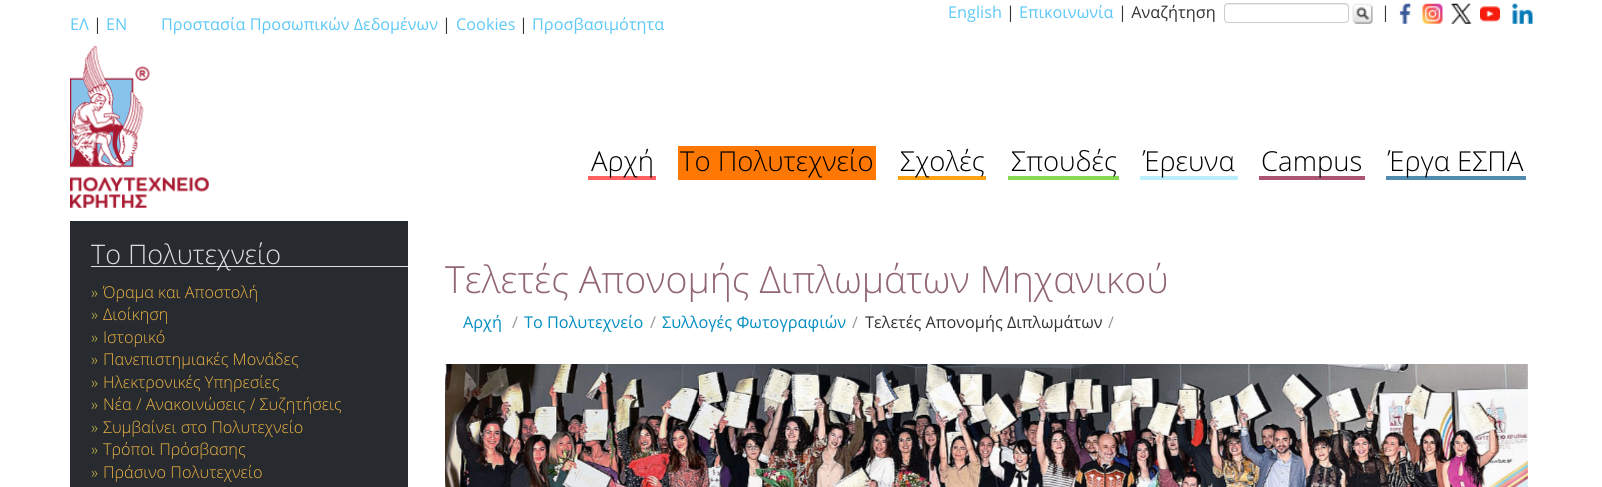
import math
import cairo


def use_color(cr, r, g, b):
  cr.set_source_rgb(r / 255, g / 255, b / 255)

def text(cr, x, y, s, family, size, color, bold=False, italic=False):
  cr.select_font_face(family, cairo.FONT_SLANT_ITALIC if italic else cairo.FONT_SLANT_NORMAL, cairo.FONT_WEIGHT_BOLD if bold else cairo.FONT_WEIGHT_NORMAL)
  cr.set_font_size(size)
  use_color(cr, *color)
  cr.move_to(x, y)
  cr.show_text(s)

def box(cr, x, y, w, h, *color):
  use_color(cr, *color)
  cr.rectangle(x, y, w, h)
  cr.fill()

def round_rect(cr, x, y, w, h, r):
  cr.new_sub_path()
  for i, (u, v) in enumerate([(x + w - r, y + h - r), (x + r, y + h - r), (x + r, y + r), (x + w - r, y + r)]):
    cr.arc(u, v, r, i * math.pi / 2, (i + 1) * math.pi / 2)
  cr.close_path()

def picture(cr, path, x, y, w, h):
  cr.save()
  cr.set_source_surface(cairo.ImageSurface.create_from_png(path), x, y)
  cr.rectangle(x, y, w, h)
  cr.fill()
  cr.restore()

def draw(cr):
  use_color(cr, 255, 255, 255)
  cr.paint()
  use_color(cr, 236, 236, 236)
  cr.new_path()
  cr.move_to(1228, 5)
  cr.line_to(1345, 5)
  cr.curve_to(1346, 5, 1348, 6, 1348, 8)
  cr.line_to(1348, 6)
  cr.curve_to(1348, 5, 1347, 4, 1346, 4)
  cr.line_to(1228, 4)
  cr.curve_to(1226, 4, 1225, 5, 1225, 6)
  cr.line_to(1225, 8)
  cr.curve_to(1225, 6, 1226, 5, 1228, 5)
  cr.close_path()
  cr.fill()
  round_rect(cr, 1224.5, 3.5, 124, 19, 3.5)
  use_color(cr, 204, 204, 204)
  cr.set_line_width(1)
  cr.stroke()
  picture(cr, "img_01.png", 1352, 3, 21, 21)
  picture(cr, "img_02.png", 1399, 3, 13, 21)
  picture(cr, "img_03.png", 1422, 3, 21, 21)
  picture(cr, "img_04.png", 1451, 3, 21, 21)
  picture(cr, "img_05.png", 1480, 6, 20, 16)
  picture(cr, "img_06.png", 1512, 3, 21, 21)
  picture(cr, "img_07.png", 70, 46, 139, 162)
  box(cr, 588, 176, 68, 4, 255, 96, 96)
  box(cr, 678, 146, 198, 34, 255, 120, 3)
  box(cr, 898, 176, 88, 4, 255, 162, 19)
  box(cr, 1008, 176, 111, 4, 134, 217, 83)
  box(cr, 1140, 176, 98, 4, 186, 238, 252)
  box(cr, 1259, 176, 106, 4, 171, 84, 115)
  box(cr, 1386, 176, 140, 4, 81, 139, 176)
  box(cr, 70, 221, 338, 266, 39, 42, 47)
  box(cr, 91, 266, 317, 1, 219, 223, 226)
  picture(cr, "img_08.png", 445, 364, 1083, 123)
  text(cr, 948, 18, "English", "Open Sans", 16.25, (94, 201, 247))
  text(cr, 1006, 18, "|", "Open Sans", 16.25, (51, 51, 51))
  text(cr, 1019, 18, "Επικοινωνία", "Open Sans", 16.25, (94, 201, 247))
  text(cr, 1118, 18, "| Αναζήτηση", "Open Sans", 16.25, (51, 51, 51))
  text(cr, 1381, 18, "|", "Open Sans", 16.25, (51, 51, 51))
  text(cr, 70, 30, "ΕΛ", "Open Sans", 16.25, (94, 201, 247))
  text(cr, 93, 30, "|", "Open Sans", 16.25, (51, 51, 51))
  text(cr, 106, 30, "EN", "Open Sans", 16.25, (94, 201, 247))
  text(cr, 161, 30, "Προστασία Προσωπικών Δεδομένων", "Open Sans", 16.25, (94, 201, 247))
  text(cr, 442, 30, "|", "Open Sans", 16.25, (51, 51, 51))
  text(cr, 456, 30, "Cookies", "Open Sans", 16.25, (94, 201, 247))
  text(cr, 519, 30, "|", "Open Sans", 16.25, (51, 51, 51))
  text(cr, 532, 30, "Προσβασιμότητα", "Open Sans", 16.25, (94, 201, 247))
  text(cr, 591, 171, "Αρχή", "Open Sans Light", 27.5, (0, 0, 0))
  text(cr, 680, 171, "Το Πολυτεχνείο", "Open Sans Light", 27.5, (0, 0, 0))
  text(cr, 900, 171, "Σχολές", "Open Sans Light", 27.5, (0, 0, 0))
  text(cr, 1011, 171, "Σπουδές", "Open Sans Light", 27.5, (0, 0, 0))
  text(cr, 1143, 171, "Έρευνα", "Open Sans Light", 27.5, (0, 0, 0))
  text(cr, 1261, 171, "Campus", "Open Sans Light", 27.5, (0, 0, 0))
  text(cr, 1388, 171, "Έργα ΕΣΠΑ", "Open Sans Light", 27.5, (0, 0, 0))
  text(cr, 91, 264, "Το Πολυτεχνείο", "Open Sans Light", 27, (219, 223, 226))
  text(cr, 91, 298, "»", "Open Sans Light", 16.25, (199, 181, 71))
  text(cr, 103, 298, "Όραμα και Αποστολή", "Open Sans Light", 16.25, (237, 180, 66))
  text(cr, 91, 320, "»", "Open Sans Light", 16.25, (199, 181, 71))
  text(cr, 103, 320, "Διοίκηση", "Open Sans Light", 16.25, (237, 180, 66))
  text(cr, 91, 343, "»", "Open Sans Light", 16.25, (199, 181, 71))
  text(cr, 103, 343, "Ιστορικό", "Open Sans Light", 16.25, (237, 180, 66))
  text(cr, 91, 365, "»", "Open Sans Light", 16.25, (199, 181, 71))
  text(cr, 103, 365, "Πανεπιστημιακές Μονάδες", "Open Sans Light", 16.25, (237, 180, 66))
  text(cr, 91, 388, "»", "Open Sans Light", 16.25, (199, 181, 71))
  text(cr, 103, 388, "Ηλεκτρονικές Υπηρεσίες", "Open Sans Light", 16.25, (237, 180, 66))
  text(cr, 91, 410, "»", "Open Sans Light", 16.25, (199, 181, 71))
  text(cr, 103, 410, "Νέα / Ανακοινώσεις / Συζητήσεις", "Open Sans Light", 16.25, (237, 180, 66))
  text(cr, 91, 433, "»", "Open Sans Light", 16.25, (199, 181, 71))
  text(cr, 103, 433, "Συμβαίνει στο Πολυτεχνείο", "Open Sans Light", 16.25, (237, 180, 66))
  text(cr, 91, 455, "»", "Open Sans Light", 16.25, (199, 181, 71))
  text(cr, 103, 455, "Τρόποι Πρόσβασης", "Open Sans Light", 16.25, (237, 180, 66))
  text(cr, 91, 478, "»", "Open Sans Light", 16.25, (199, 181, 71))
  text(cr, 103, 478, "Πράσινο Πολυτεχνείο", "Open Sans Light", 16.25, (237, 180, 66))
  text(cr, 445, 293, "Τελετές Απονομής Διπλωμάτων Μηχανικού", "Open Sans Light", 37.5, (145, 101, 118))
  text(cr, 463, 328, "Αρχή", "Open Sans", 16.25, (2, 141, 192))
  text(cr, 512, 328, "/", "Open Sans", 16.25, (153, 153, 153))
  text(cr, 524, 328, "Το Πολυτεχνείο", "Open Sans", 16.25, (2, 141, 192))
  text(cr, 650, 328, "/", "Open Sans", 16.25, (153, 153, 153))
  text(cr, 662, 328, "Συλλογές Φωτογραφιών", "Open Sans", 16.25, (2, 141, 192))
  text(cr, 852, 328, "/", "Open Sans", 16.25, (153, 153, 153))
  text(cr, 865, 328, "Τελετές Απονομής Διπλωμάτων", "Open Sans", 16.25, (51, 51, 51))
  text(cr, 1108, 328, "/", "Open Sans", 16.25, (153, 153, 153))


surface = cairo.ImageSurface(cairo.FORMAT_RGB24, 1602, 487)
cr = cairo.Context(surface)
options = cairo.FontOptions()
options.set_hint_metrics(cairo.HINT_METRICS_OFF)
options.set_hint_style(cairo.HINT_STYLE_NONE)
cr.set_font_options(options)
cr.set_miter_limit(4)
draw(cr)
surface.write_to_png("out.png")
